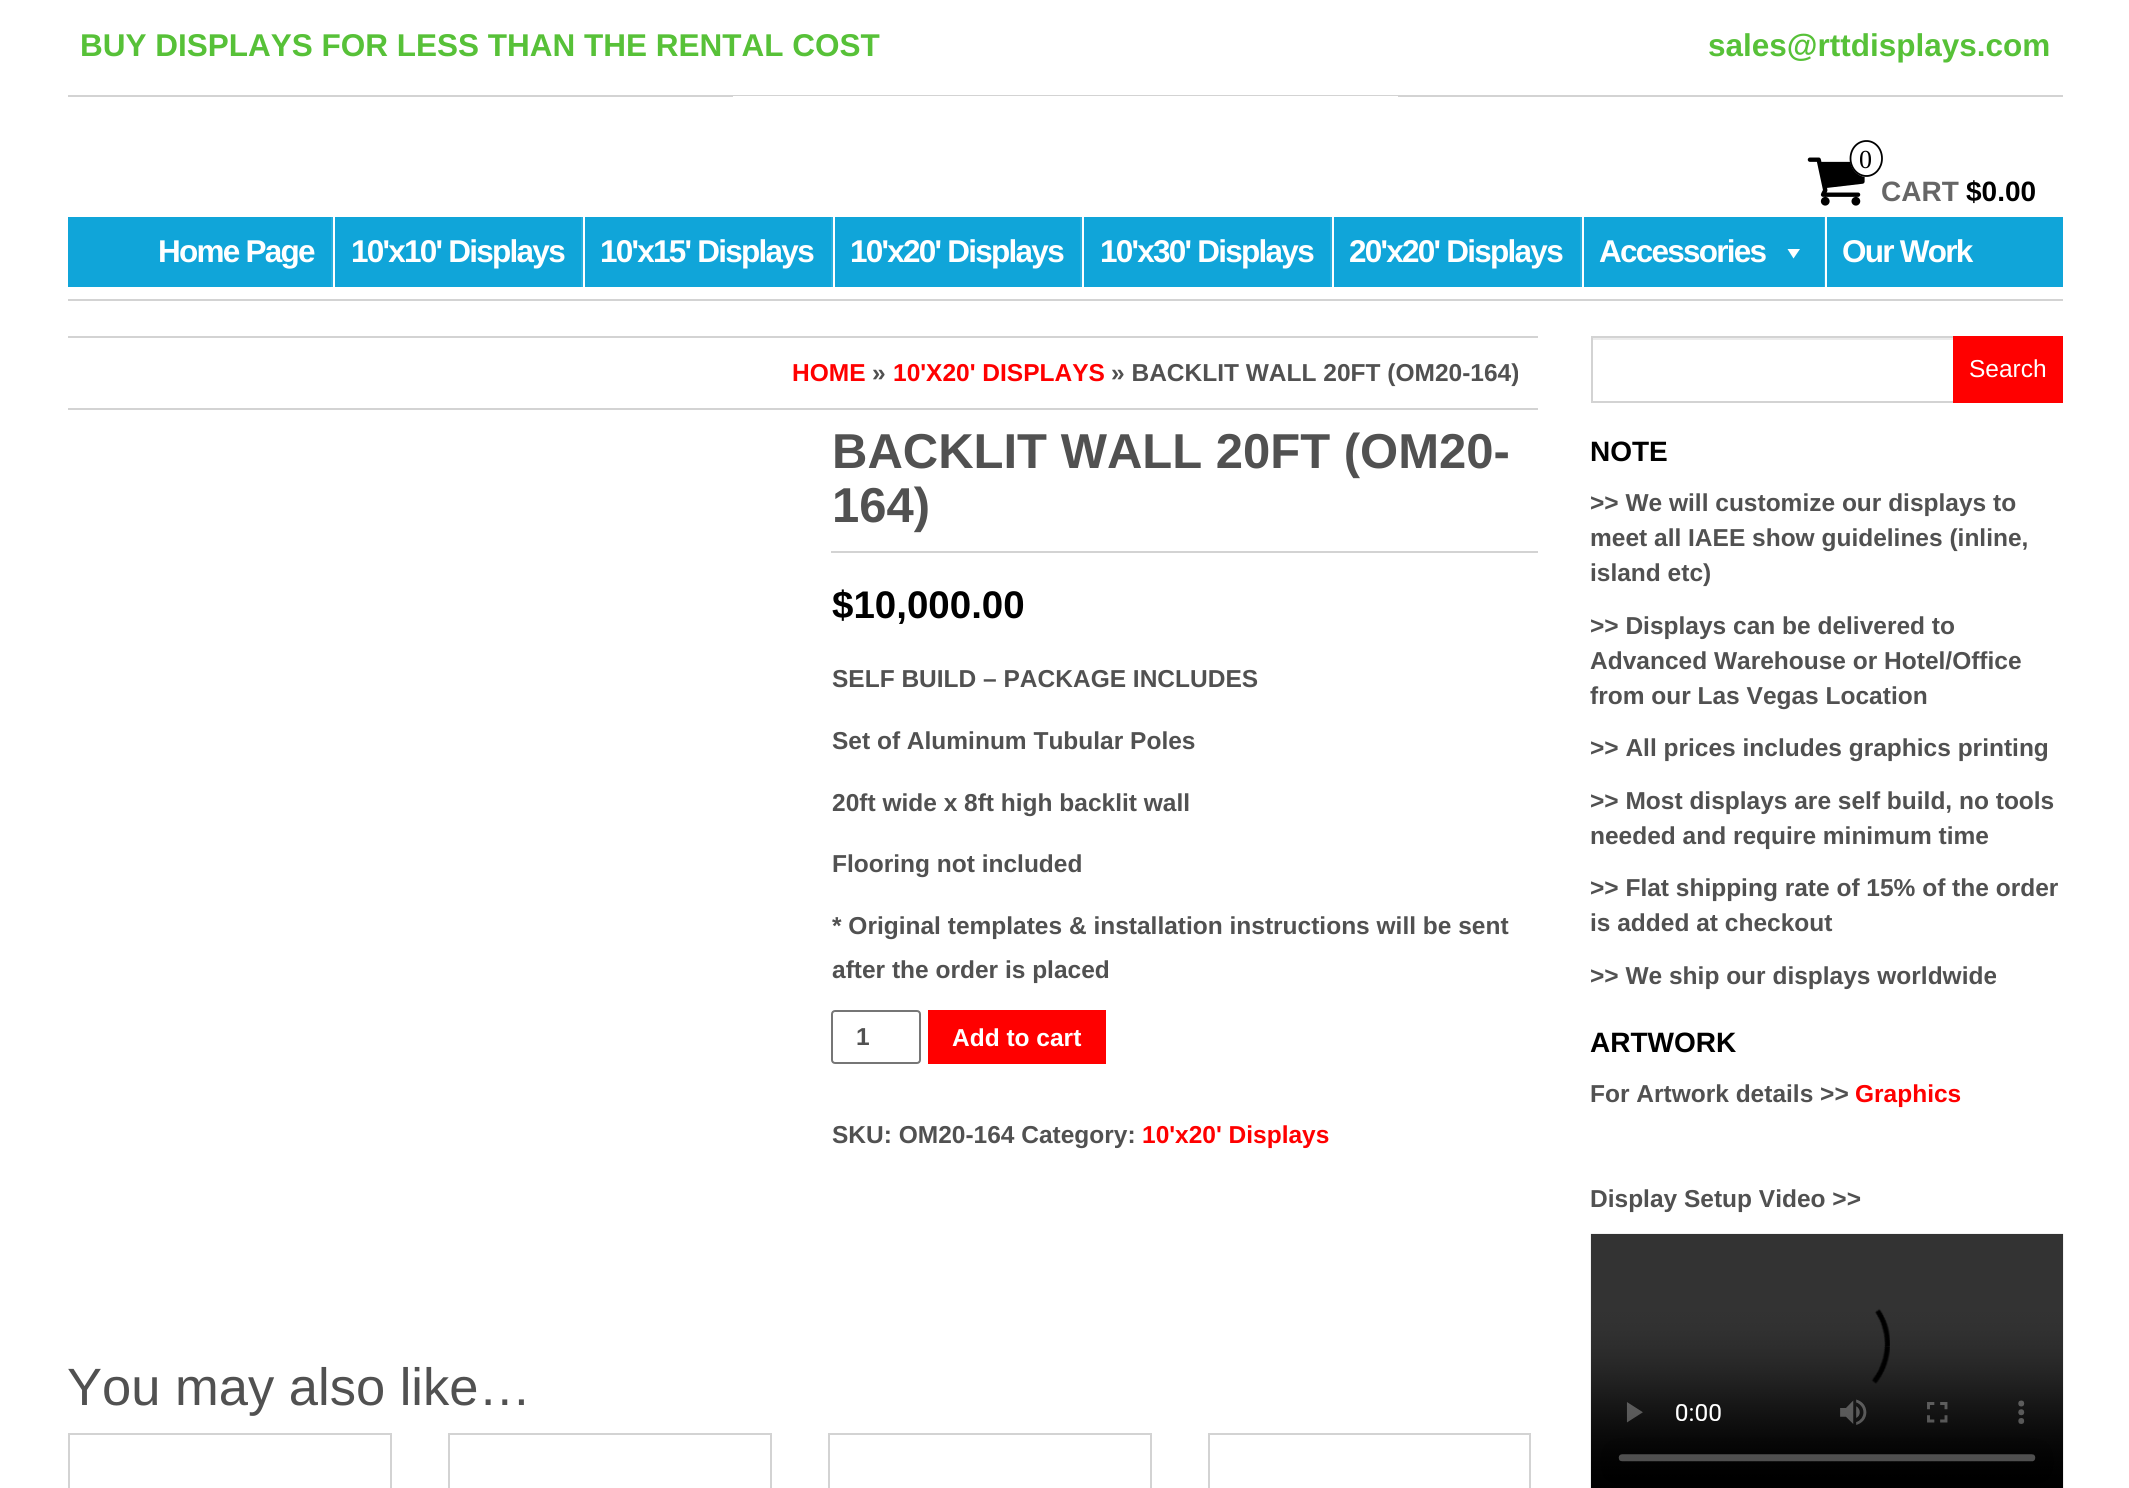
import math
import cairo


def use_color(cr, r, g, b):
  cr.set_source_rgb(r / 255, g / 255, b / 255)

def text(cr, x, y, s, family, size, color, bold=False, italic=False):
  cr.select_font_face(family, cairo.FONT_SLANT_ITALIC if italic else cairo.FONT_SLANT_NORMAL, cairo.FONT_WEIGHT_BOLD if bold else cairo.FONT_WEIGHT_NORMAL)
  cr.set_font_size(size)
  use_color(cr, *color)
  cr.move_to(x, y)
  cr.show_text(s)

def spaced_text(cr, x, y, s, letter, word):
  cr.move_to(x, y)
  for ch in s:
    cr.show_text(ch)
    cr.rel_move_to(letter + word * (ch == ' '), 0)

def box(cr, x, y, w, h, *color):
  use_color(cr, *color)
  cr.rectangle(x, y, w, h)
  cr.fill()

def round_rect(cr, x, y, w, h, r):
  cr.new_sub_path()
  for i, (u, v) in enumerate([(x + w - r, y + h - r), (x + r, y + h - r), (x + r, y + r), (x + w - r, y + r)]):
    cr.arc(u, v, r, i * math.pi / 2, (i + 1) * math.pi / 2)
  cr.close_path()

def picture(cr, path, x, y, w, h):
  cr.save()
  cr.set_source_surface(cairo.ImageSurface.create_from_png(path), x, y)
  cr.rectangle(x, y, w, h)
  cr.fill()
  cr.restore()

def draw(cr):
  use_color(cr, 255, 255, 255)
  cr.paint()
  box(cr, 68, 95, 1995, 2, 211, 211, 211)
  box(cr, 733, 96, 665, 1, 255, 255, 255)
  picture(cr, "img_01.png", 1807, 157, 58, 49)
  cr.new_path()
  cr.move_to(1866.5, 140)
  cr.curve_to(1875.5, 140, 1883, 148.5, 1883, 158.5)
  cr.curve_to(1883, 168.5, 1875.5, 177, 1866.5, 177)
  cr.curve_to(1857.5, 177, 1850, 168.5, 1850, 158.5)
  cr.curve_to(1850, 148.5, 1857.5, 140, 1866.5, 140)
  cr.close_path()
  cr.fill()
  cr.new_path()
  cr.move_to(1866.5, 141)
  cr.curve_to(1875, 141, 1882, 148.5, 1882, 158.5)
  cr.curve_to(1882, 168, 1875, 176, 1866.5, 176)
  cr.curve_to(1857.5, 176, 1850.5, 168, 1850.5, 158.5)
  cr.curve_to(1850.5, 148.5, 1857.5, 141, 1866.5, 141)
  cr.close_path()
  use_color(cr, 0, 0, 0)
  cr.set_line_width(1.8)
  cr.stroke()
  box(cr, 68, 299, 1995, 2, 211, 211, 211)
  box(cr, 68, 217, 1995, 70, 16, 165, 217)
  box(cr, 1824, 217, 1, 70, 40, 174, 221)
  box(cr, 333, 217, 2, 70, 255, 255, 255)
  box(cr, 331, 217, 2, 70, 40, 174, 221)
  box(cr, 583, 217, 2, 70, 255, 255, 255)
  box(cr, 581, 217, 2, 70, 40, 174, 221)
  box(cr, 833, 217, 2, 70, 255, 255, 255)
  box(cr, 831, 217, 2, 70, 40, 174, 221)
  box(cr, 1082, 217, 2, 70, 255, 255, 255)
  box(cr, 1080, 217, 2, 70, 40, 174, 221)
  box(cr, 1332, 217, 2, 70, 255, 255, 255)
  box(cr, 1330, 217, 2, 70, 40, 174, 221)
  box(cr, 1582, 217, 2, 70, 255, 255, 255)
  box(cr, 1580, 217, 2, 70, 40, 174, 221)
  use_color(cr, 255, 255, 255)
  cr.new_path()
  cr.move_to(1800, 249)
  cr.line_to(1793.5, 258.5)
  cr.line_to(1787.5, 249)
  cr.close_path()
  cr.fill()
  box(cr, 1825, 217, 2, 70, 255, 255, 255)
  box(cr, 68, 336, 1470, 2, 211, 211, 211)
  box(cr, 68, 408, 1470, 2, 211, 211, 211)
  box(cr, 831, 551, 707, 2, 211, 211, 211)
  round_rect(cr, 832, 1011, 88, 52, 3)
  use_color(cr, 118, 118, 118)
  cr.set_line_width(2)
  cr.stroke()
  box(cr, 928, 1010, 178, 54, 255, 0, 0)
  cr.rectangle(69, 1434, 322, 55)
  use_color(cr, 211, 211, 211)
  cr.stroke()
  cr.rectangle(449, 1434, 322, 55)
  cr.stroke()
  cr.rectangle(829, 1434, 322, 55)
  cr.stroke()
  cr.rectangle(1209, 1434, 321, 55)
  cr.stroke()
  box(cr, 1593, 338, 360, 2, 236, 236, 236)
  cr.rectangle(1592, 337, 470, 65)
  use_color(cr, 211, 211, 211)
  cr.stroke()
  box(cr, 1953, 336, 110, 67, 255, 0, 0)
  picture(cr, "img_02.png", 1590, 1233, 474, 255)
  text(cr, 80, 56, "BUY DISPLAYS FOR LESS THAN THE RENTAL COST", "Liberation Sans", 31.5, (87, 193, 56), bold=True)
  text(cr, 1708, 56, "sales@rttdisplays.com", "Liberation Sans", 31.5, (87, 193, 56), bold=True)
  text(cr, 1859, 168, "0", "Liberation Serif", 26, (0, 0, 0))
  text(cr, 1881, 201, "CART", "Liberation Sans", 28, (102, 102, 102), bold=True)
  text(cr, 1966, 201, "$0.00", "Liberation Sans", 28, (0, 0, 0), bold=True)
  cr.set_font_size(31.5)
  use_color(cr, 255, 255, 255)
  spaced_text(cr, 158, 262, "Home Page", -1.75, 0)
  spaced_text(cr, 351, 262, "10'x10' Displays", -1.75, 0)
  spaced_text(cr, 600, 262, "10'x15' Displays", -1.75, 0)
  spaced_text(cr, 850, 262, "10'x20' Displays", -1.75, 0)
  spaced_text(cr, 1100, 262, "10'x30' Displays", -1.75, 0)
  spaced_text(cr, 1349, 262, "20'x20' Displays", -1.75, 0)
  spaced_text(cr, 1599, 262, "Accessories", -1.75, 0)
  spaced_text(cr, 1842, 262, "Our Work", -1.75, 0)
  text(cr, 792, 381, "HOME", "Liberation Sans", 24.5, (255, 0, 0), bold=True)
  text(cr, 872, 381, "»", "Liberation Sans", 24.5, (81, 81, 81), bold=True)
  text(cr, 893, 381, "10'X20' DISPLAYS", "Liberation Sans", 24.5, (255, 0, 0), bold=True)
  text(cr, 1111, 381, "» BACKLIT WALL 20FT (OM20-164)", "Liberation Sans", 24.5, (81, 81, 81), bold=True)
  text(cr, 832, 468, "BACKLIT WALL 20FT (OM20-", "Liberation Sans", 49, (81, 81, 81), bold=True)
  text(cr, 832, 522, "164)", "Liberation Sans", 49, (81, 81, 81), bold=True)
  text(cr, 832, 618, "$10,000.00", "Liberation Sans", 38.5, (0, 0, 0), bold=True)
  text(cr, 832, 687, "SELF BUILD – PACKAGE INCLUDES", "Liberation Sans", 24.5, (81, 81, 81), bold=True)
  text(cr, 832, 749, "Set of Aluminum Tubular Poles", "Liberation Sans", 24.5, (81, 81, 81), bold=True)
  text(cr, 832, 811, "20ft wide x 8ft high backlit wall", "Liberation Sans", 24.5, (81, 81, 81), bold=True)
  text(cr, 832, 872, "Flooring not included", "Liberation Sans", 24.5, (81, 81, 81), bold=True)
  text(cr, 832, 934, "* Original templates & installation instructions will be sent", "Liberation Sans", 24.5, (81, 81, 81), bold=True)
  text(cr, 832, 978, "after the order is placed", "Liberation Sans", 24.5, (81, 81, 81), bold=True)
  text(cr, 856, 1045, "1", "Liberation Sans", 24.5, (81, 81, 81), bold=True)
  text(cr, 952, 1046, "Add to cart", "Liberation Sans", 24.5, (255, 255, 255), bold=True)
  text(cr, 832, 1143, "SKU: OM20-164 Category:", "Liberation Sans", 24.5, (81, 81, 81), bold=True)
  text(cr, 1142, 1143, "10'x20' Displays", "Liberation Sans", 24.5, (255, 0, 0), bold=True)
  text(cr, 67, 1405, "You may also like…", "Liberation Sans", 52.5, (81, 81, 81))
  text(cr, 1969, 377, "Search", "Liberation Sans", 24.5, (255, 255, 255))
  text(cr, 1590, 461, "NOTE", "Liberation Sans", 28, (0, 0, 0), bold=True)
  text(cr, 1590, 511, ">> We will customize our displays to", "Liberation Sans", 24.5, (81, 81, 81), bold=True)
  text(cr, 1590, 546, "meet all IAEE show guidelines (inline,", "Liberation Sans", 24.5, (81, 81, 81), bold=True)
  text(cr, 1590, 581, "island etc)", "Liberation Sans", 24.5, (81, 81, 81), bold=True)
  text(cr, 1590, 634, ">> Displays can be delivered to", "Liberation Sans", 24.5, (81, 81, 81), bold=True)
  text(cr, 1590, 669, "Advanced Warehouse or Hotel/Office", "Liberation Sans", 24.5, (81, 81, 81), bold=True)
  text(cr, 1590, 704, "from our Las Vegas Location", "Liberation Sans", 24.5, (81, 81, 81), bold=True)
  text(cr, 1590, 756, ">> All prices includes graphics printing", "Liberation Sans", 24.5, (81, 81, 81), bold=True)
  text(cr, 1590, 809, ">> Most displays are self build, no tools", "Liberation Sans", 24.5, (81, 81, 81), bold=True)
  text(cr, 1590, 844, "needed and require minimum time", "Liberation Sans", 24.5, (81, 81, 81), bold=True)
  text(cr, 1590, 896, ">> Flat shipping rate of 15% of the order", "Liberation Sans", 24.5, (81, 81, 81), bold=True)
  text(cr, 1590, 931, "is added at checkout", "Liberation Sans", 24.5, (81, 81, 81), bold=True)
  text(cr, 1590, 984, ">> We ship our displays worldwide", "Liberation Sans", 24.5, (81, 81, 81), bold=True)
  text(cr, 1590, 1052, "ARTWORK", "Liberation Sans", 28, (0, 0, 0), bold=True)
  text(cr, 1590, 1102, "For Artwork details >>", "Liberation Sans", 24.5, (81, 81, 81), bold=True)
  text(cr, 1855, 1102, "Graphics", "Liberation Sans", 24.5, (255, 0, 0), bold=True)
  text(cr, 1590, 1207, "Display Setup Video >>", "Liberation Sans", 24.5, (81, 81, 81), bold=True)


surface = cairo.ImageSurface(cairo.FORMAT_RGB24, 2129, 1488)
cr = cairo.Context(surface)
options = cairo.FontOptions()
options.set_hint_metrics(cairo.HINT_METRICS_OFF)
options.set_hint_style(cairo.HINT_STYLE_NONE)
cr.set_font_options(options)
cr.set_miter_limit(4)
draw(cr)
surface.write_to_png("out.png")
